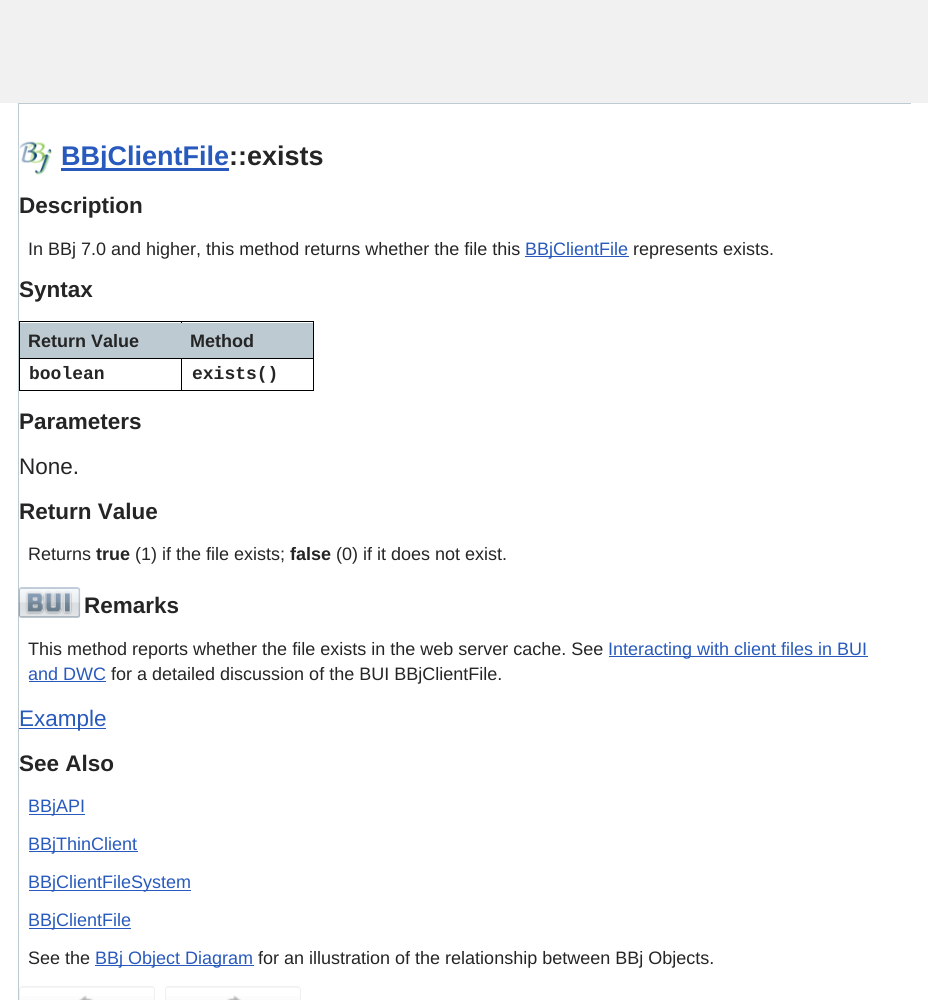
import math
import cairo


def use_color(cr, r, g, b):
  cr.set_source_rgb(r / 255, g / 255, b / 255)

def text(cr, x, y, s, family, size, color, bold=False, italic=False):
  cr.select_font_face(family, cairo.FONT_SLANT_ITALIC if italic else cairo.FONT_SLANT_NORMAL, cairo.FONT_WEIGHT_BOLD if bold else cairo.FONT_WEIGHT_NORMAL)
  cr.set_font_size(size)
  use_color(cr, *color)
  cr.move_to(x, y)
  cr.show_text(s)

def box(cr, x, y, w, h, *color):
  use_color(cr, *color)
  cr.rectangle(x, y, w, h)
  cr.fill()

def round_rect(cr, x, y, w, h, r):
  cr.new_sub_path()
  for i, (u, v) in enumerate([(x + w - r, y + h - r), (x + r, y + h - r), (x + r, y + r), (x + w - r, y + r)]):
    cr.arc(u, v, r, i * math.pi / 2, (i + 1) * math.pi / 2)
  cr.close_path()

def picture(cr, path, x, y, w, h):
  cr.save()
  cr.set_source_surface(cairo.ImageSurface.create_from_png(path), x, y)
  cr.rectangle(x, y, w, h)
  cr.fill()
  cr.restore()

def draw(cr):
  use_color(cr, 255, 255, 255)
  cr.paint()
  box(cr, 0, 0, 928, 103, 241, 241, 241)
  box(cr, 18, 103, 893, 1, 189, 202, 210)
  box(cr, 18, 103, 1, 897, 189, 202, 210)
  picture(cr, "img_01.png", 18, 141, 34, 34)
  box(cr, 61, 168, 168, 3, 40, 90, 189)
  box(cr, 525, 256, 104, 1, 40, 90, 189)
  box(cr, 19, 321, 295, 1, 0, 0, 0)
  box(cr, 313, 321, 1, 70, 0, 0, 0)
  box(cr, 19, 390, 295, 1, 0, 0, 0)
  box(cr, 19, 321, 1, 70, 0, 0, 0)
  box(cr, 181, 321, 1, 2, 0, 0, 0)
  box(cr, 20, 323, 293, 35, 189, 202, 210)
  box(cr, 181, 358, 1, 33, 0, 0, 0)
  box(cr, 19, 358, 295, 1, 0, 0, 0)
  picture(cr, "img_02.png", 18, 587, 63, 31)
  box(cr, 609, 656, 259, 1, 40, 90, 189)
  box(cr, 29, 681, 77, 1, 40, 90, 189)
  box(cr, 19, 728, 87, 1, 40, 90, 189)
  box(cr, 29, 814, 56, 1, 40, 90, 189)
  box(cr, 29, 851, 109, 1, 40, 90, 189)
  box(cr, 29, 890, 162, 1, 40, 90, 189)
  box(cr, 29, 928, 102, 1, 40, 90, 189)
  box(cr, 95, 965, 159, 1, 40, 90, 189)
  cr.save()
  round_rect(cr, 19, 986, 136, 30, 4)
  cr.clip()
  gradient = cairo.LinearGradient(87, 960, 87, 988)
  gradient.add_color_stop_rgba(0, 1, 1, 1, 1)
  gradient.add_color_stop_rgba(1, 0.965, 0.965, 0.965, 1)
  cr.set_source(gradient)
  cr.rectangle(19, 986, 136, 2)
  cr.fill()
  cr.restore()
  gradient = cairo.LinearGradient(87, 988, 87, 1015)
  gradient.add_color_stop_rgba(0, 1, 1, 1, 1)
  gradient.add_color_stop_rgba(1, 0.965, 0.965, 0.965, 1)
  cr.set_source(gradient)
  cr.rectangle(19, 996, 136, 4)
  cr.fill()
  round_rect(cr, 19.5, 986.5, 135, 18, 3.5)
  use_color(cr, 240, 240, 240)
  cr.set_line_width(1)
  cr.stroke()
  picture(cr, "img_03.png", 79, 995, 14, 5)
  cr.save()
  round_rect(cr, 165, 986, 136, 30, 4)
  cr.clip()
  gradient = cairo.LinearGradient(233, 960, 233, 988)
  gradient.add_color_stop_rgba(0, 1, 1, 1, 1)
  gradient.add_color_stop_rgba(1, 0.965, 0.965, 0.965, 1)
  cr.set_source(gradient)
  cr.rectangle(165, 986, 136, 2)
  cr.fill()
  cr.restore()
  gradient = cairo.LinearGradient(233, 988, 233, 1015)
  gradient.add_color_stop_rgba(0, 1, 1, 1, 1)
  gradient.add_color_stop_rgba(1, 0.965, 0.965, 0.965, 1)
  cr.set_source(gradient)
  cr.rectangle(165, 996, 136, 4)
  cr.fill()
  round_rect(cr, 165.5, 986.5, 135, 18, 3.5)
  use_color(cr, 240, 240, 240)
  cr.stroke()
  picture(cr, "img_04.png", 227, 995, 14, 5)
  text(cr, 61, 165, "BBjClientFile", "Liberation Sans", 27, (40, 90, 189), bold=True)
  text(cr, 229, 165, "::exists", "Liberation Sans", 27, (37, 37, 37), bold=True)
  text(cr, 19, 213, "Description", "Liberation Sans", 22.5, (37, 37, 37), bold=True)
  text(cr, 28, 255, "In BBj 7.0 and higher, this method returns whether the file this", "Liberation Sans", 18, (37, 37, 37))
  text(cr, 525, 255, "BBjClientFile", "Liberation Sans", 18, (40, 90, 189))
  text(cr, 633, 255, "represents exists.", "Liberation Sans", 18, (37, 37, 37))
  text(cr, 19, 297, "Syntax", "Liberation Sans", 22.5, (37, 37, 37), bold=True)
  text(cr, 28, 347, "Return Value", "Liberation Sans", 18, (37, 37, 37), bold=True)
  text(cr, 190, 347, "Method", "Liberation Sans", 18, (37, 37, 37), bold=True)
  text(cr, 29, 379, "boolean", "Liberation Mono", 18, (37, 37, 37), bold=True)
  text(cr, 192, 379, "exists()", "Liberation Mono", 18, (37, 37, 37), bold=True)
  text(cr, 19, 429, "Parameters", "Liberation Sans", 22.5, (37, 37, 37), bold=True)
  text(cr, 19, 474, "None.", "Liberation Sans", 22.5, (37, 37, 37))
  text(cr, 19, 519, "Return Value", "Liberation Sans", 22.5, (37, 37, 37), bold=True)
  text(cr, 28, 560, "Returns", "Liberation Sans", 18, (37, 37, 37))
  text(cr, 96, 560, "true", "Liberation Sans", 18, (37, 37, 37), bold=True)
  text(cr, 135, 560, "(1) if the file exists;", "Liberation Sans", 18, (37, 37, 37))
  text(cr, 290, 560, "false", "Liberation Sans", 18, (37, 37, 37), bold=True)
  text(cr, 336, 560, "(0) if it does not exist.", "Liberation Sans", 18, (37, 37, 37))
  text(cr, 84, 613, "Remarks", "Liberation Sans", 22.5, (37, 37, 37), bold=True)
  text(cr, 28, 655, "This method reports whether the file exists in the web server cache. See", "Liberation Sans", 18, (37, 37, 37))
  text(cr, 608, 655, "Interacting with client files in BUI", "Liberation Sans", 18, (40, 90, 189))
  text(cr, 28, 680, "and DWC", "Liberation Sans", 18, (40, 90, 189))
  text(cr, 111, 680, "for a detailed discussion of the BUI BBjClientFile.", "Liberation Sans", 18, (37, 37, 37))
  text(cr, 19, 726, "Example", "Liberation Sans", 22.5, (40, 90, 189))
  text(cr, 19, 771, "See Also", "Liberation Sans", 22.5, (37, 37, 37), bold=True)
  text(cr, 28, 812, "BBjAPI", "Liberation Sans", 18, (40, 90, 189))
  text(cr, 28, 850, "BBjThinClient", "Liberation Sans", 18, (40, 90, 189))
  text(cr, 28, 888, "BBjClientFileSystem", "Liberation Sans", 18, (40, 90, 189))
  text(cr, 28, 926, "BBjClientFile", "Liberation Sans", 18, (40, 90, 189))
  text(cr, 28, 964, "See the", "Liberation Sans", 18, (37, 37, 37))
  text(cr, 95, 964, "BBj Object Diagram", "Liberation Sans", 18, (40, 90, 189))
  text(cr, 258, 964, "for an illustration of the relationship between BBj Objects.", "Liberation Sans", 18, (37, 37, 37))


surface = cairo.ImageSurface(cairo.FORMAT_RGB24, 928, 1000)
cr = cairo.Context(surface)
options = cairo.FontOptions()
options.set_hint_metrics(cairo.HINT_METRICS_OFF)
options.set_hint_style(cairo.HINT_STYLE_NONE)
cr.set_font_options(options)
cr.set_miter_limit(4)
draw(cr)
surface.write_to_png("out.png")
